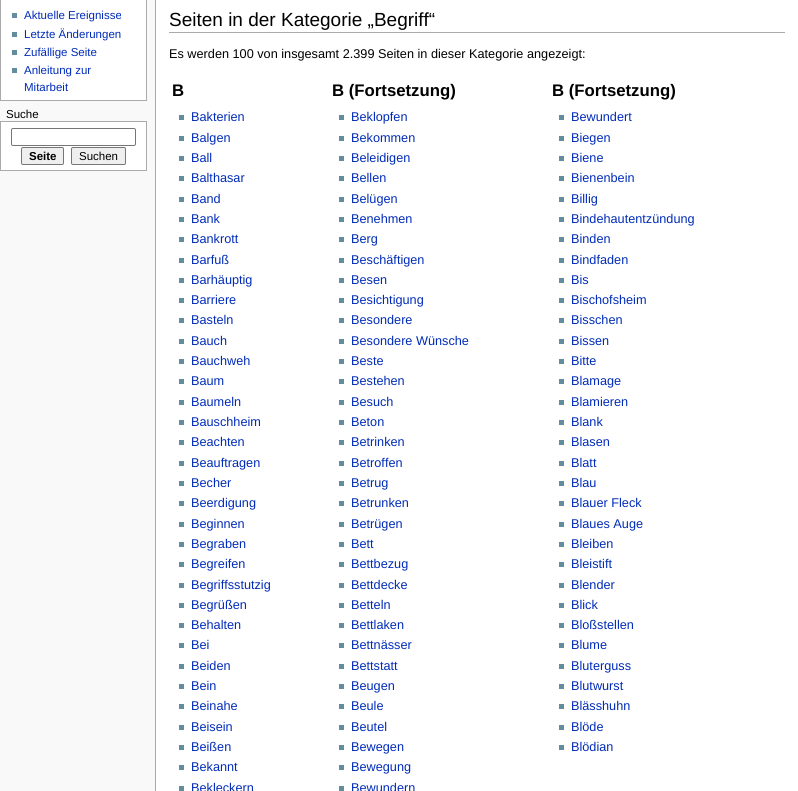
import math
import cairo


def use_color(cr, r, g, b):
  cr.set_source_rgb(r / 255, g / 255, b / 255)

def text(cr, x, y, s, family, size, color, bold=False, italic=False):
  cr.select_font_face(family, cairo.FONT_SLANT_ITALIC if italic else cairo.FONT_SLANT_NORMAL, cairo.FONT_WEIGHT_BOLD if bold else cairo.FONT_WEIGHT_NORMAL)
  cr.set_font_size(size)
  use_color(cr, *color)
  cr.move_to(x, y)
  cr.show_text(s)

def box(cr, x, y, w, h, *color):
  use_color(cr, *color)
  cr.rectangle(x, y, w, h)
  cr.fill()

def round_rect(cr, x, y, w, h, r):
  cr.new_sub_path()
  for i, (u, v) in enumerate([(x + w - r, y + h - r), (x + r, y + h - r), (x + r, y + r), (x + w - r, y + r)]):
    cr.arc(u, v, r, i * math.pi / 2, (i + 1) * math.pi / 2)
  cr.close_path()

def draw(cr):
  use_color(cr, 249, 249, 249)
  cr.paint()
  use_color(cr, 255, 255, 255)
  cr.rectangle(0.5, -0.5, 146, 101)
  cr.fill_preserve()
  use_color(cr, 170, 170, 170)
  cr.set_line_width(1)
  cr.stroke()
  box(cr, 12, 13, 5, 5, 99, 140, 156)
  box(cr, 12, 32, 5, 5, 99, 140, 156)
  box(cr, 12, 50, 5, 5, 99, 140, 156)
  box(cr, 12, 68, 5, 5, 99, 140, 156)
  use_color(cr, 255, 255, 255)
  cr.rectangle(0.5, 121.5, 146, 49)
  cr.fill_preserve()
  use_color(cr, 170, 170, 170)
  cr.stroke()
  round_rect(cr, 11.5, 128.5, 124, 17, 1.5)
  use_color(cr, 118, 118, 118)
  cr.stroke()
  use_color(cr, 239, 239, 239)
  round_rect(cr, 21.5, 147.5, 42, 17, 1.5)
  cr.fill_preserve()
  use_color(cr, 118, 118, 118)
  cr.stroke()
  use_color(cr, 239, 239, 239)
  round_rect(cr, 71.5, 147.5, 54, 17, 1.5)
  cr.fill_preserve()
  use_color(cr, 118, 118, 118)
  cr.stroke()
  box(cr, 156, 0, 642, 791, 255, 255, 255)
  box(cr, 155, 0, 1, 791, 170, 170, 170)
  box(cr, 169, 32, 616, 1, 170, 170, 170)
  box(cr, 179, 115, 5, 5, 99, 140, 156)
  box(cr, 179, 136, 5, 5, 99, 140, 156)
  box(cr, 179, 156, 5, 5, 99, 140, 156)
  box(cr, 179, 176, 5, 5, 99, 140, 156)
  box(cr, 179, 197, 5, 5, 99, 140, 156)
  box(cr, 179, 217, 5, 5, 99, 140, 156)
  box(cr, 179, 237, 5, 5, 99, 140, 156)
  box(cr, 179, 258, 5, 5, 99, 140, 156)
  box(cr, 179, 278, 5, 5, 99, 140, 156)
  box(cr, 179, 298, 5, 5, 99, 140, 156)
  box(cr, 179, 318, 5, 5, 99, 140, 156)
  box(cr, 179, 339, 5, 5, 99, 140, 156)
  box(cr, 179, 359, 5, 5, 99, 140, 156)
  box(cr, 179, 379, 5, 5, 99, 140, 156)
  box(cr, 179, 400, 5, 5, 99, 140, 156)
  box(cr, 179, 420, 5, 5, 99, 140, 156)
  box(cr, 179, 440, 5, 5, 99, 140, 156)
  box(cr, 179, 461, 5, 5, 99, 140, 156)
  box(cr, 179, 481, 5, 5, 99, 140, 156)
  box(cr, 179, 501, 5, 5, 99, 140, 156)
  box(cr, 179, 522, 5, 5, 99, 140, 156)
  box(cr, 179, 542, 5, 5, 99, 140, 156)
  box(cr, 179, 562, 5, 5, 99, 140, 156)
  box(cr, 179, 583, 5, 5, 99, 140, 156)
  box(cr, 179, 603, 5, 5, 99, 140, 156)
  box(cr, 179, 623, 5, 5, 99, 140, 156)
  box(cr, 179, 643, 5, 5, 99, 140, 156)
  box(cr, 179, 664, 5, 5, 99, 140, 156)
  box(cr, 179, 684, 5, 5, 99, 140, 156)
  box(cr, 179, 704, 5, 5, 99, 140, 156)
  box(cr, 179, 725, 5, 5, 99, 140, 156)
  box(cr, 179, 745, 5, 5, 99, 140, 156)
  box(cr, 179, 765, 5, 5, 99, 140, 156)
  box(cr, 179, 786, 5, 5, 99, 140, 156)
  box(cr, 339, 115, 5, 5, 99, 140, 156)
  box(cr, 339, 136, 5, 5, 99, 140, 156)
  box(cr, 339, 156, 5, 5, 99, 140, 156)
  box(cr, 339, 176, 5, 5, 99, 140, 156)
  box(cr, 339, 197, 5, 5, 99, 140, 156)
  box(cr, 339, 217, 5, 5, 99, 140, 156)
  box(cr, 339, 237, 5, 5, 99, 140, 156)
  box(cr, 339, 258, 5, 5, 99, 140, 156)
  box(cr, 339, 278, 5, 5, 99, 140, 156)
  box(cr, 339, 298, 5, 5, 99, 140, 156)
  box(cr, 339, 318, 5, 5, 99, 140, 156)
  box(cr, 339, 339, 5, 5, 99, 140, 156)
  box(cr, 339, 359, 5, 5, 99, 140, 156)
  box(cr, 339, 379, 5, 5, 99, 140, 156)
  box(cr, 339, 400, 5, 5, 99, 140, 156)
  box(cr, 339, 420, 5, 5, 99, 140, 156)
  box(cr, 339, 440, 5, 5, 99, 140, 156)
  box(cr, 339, 461, 5, 5, 99, 140, 156)
  box(cr, 339, 481, 5, 5, 99, 140, 156)
  box(cr, 339, 501, 5, 5, 99, 140, 156)
  box(cr, 339, 522, 5, 5, 99, 140, 156)
  box(cr, 339, 542, 5, 5, 99, 140, 156)
  box(cr, 339, 562, 5, 5, 99, 140, 156)
  box(cr, 339, 583, 5, 5, 99, 140, 156)
  box(cr, 339, 603, 5, 5, 99, 140, 156)
  box(cr, 339, 623, 5, 5, 99, 140, 156)
  box(cr, 339, 643, 5, 5, 99, 140, 156)
  box(cr, 339, 664, 5, 5, 99, 140, 156)
  box(cr, 339, 684, 5, 5, 99, 140, 156)
  box(cr, 339, 704, 5, 5, 99, 140, 156)
  box(cr, 339, 725, 5, 5, 99, 140, 156)
  box(cr, 339, 745, 5, 5, 99, 140, 156)
  box(cr, 339, 765, 5, 5, 99, 140, 156)
  box(cr, 339, 786, 5, 5, 99, 140, 156)
  box(cr, 559, 115, 5, 5, 99, 140, 156)
  box(cr, 559, 136, 5, 5, 99, 140, 156)
  box(cr, 559, 156, 5, 5, 99, 140, 156)
  box(cr, 559, 176, 5, 5, 99, 140, 156)
  box(cr, 559, 197, 5, 5, 99, 140, 156)
  box(cr, 559, 217, 5, 5, 99, 140, 156)
  box(cr, 559, 237, 5, 5, 99, 140, 156)
  box(cr, 559, 258, 5, 5, 99, 140, 156)
  box(cr, 559, 278, 5, 5, 99, 140, 156)
  box(cr, 559, 298, 5, 5, 99, 140, 156)
  box(cr, 559, 318, 5, 5, 99, 140, 156)
  box(cr, 559, 339, 5, 5, 99, 140, 156)
  box(cr, 559, 359, 5, 5, 99, 140, 156)
  box(cr, 559, 379, 5, 5, 99, 140, 156)
  box(cr, 559, 400, 5, 5, 99, 140, 156)
  box(cr, 559, 420, 5, 5, 99, 140, 156)
  box(cr, 559, 440, 5, 5, 99, 140, 156)
  box(cr, 559, 461, 5, 5, 99, 140, 156)
  box(cr, 559, 481, 5, 5, 99, 140, 156)
  box(cr, 559, 501, 5, 5, 99, 140, 156)
  box(cr, 559, 522, 5, 5, 99, 140, 156)
  box(cr, 559, 542, 5, 5, 99, 140, 156)
  box(cr, 559, 562, 5, 5, 99, 140, 156)
  box(cr, 559, 583, 5, 5, 99, 140, 156)
  box(cr, 559, 603, 5, 5, 99, 140, 156)
  box(cr, 559, 623, 5, 5, 99, 140, 156)
  box(cr, 559, 643, 5, 5, 99, 140, 156)
  box(cr, 559, 664, 5, 5, 99, 140, 156)
  box(cr, 559, 684, 5, 5, 99, 140, 156)
  box(cr, 559, 704, 5, 5, 99, 140, 156)
  box(cr, 559, 725, 5, 5, 99, 140, 156)
  box(cr, 559, 745, 5, 5, 99, 140, 156)
  text(cr, 24, 19, "Aktuelle Ereignisse", "Liberation Sans", 11.5, (0, 43, 184))
  text(cr, 24, 38, "Letzte Änderungen", "Liberation Sans", 11.5, (0, 43, 184))
  text(cr, 24, 56, "Zufällige Seite", "Liberation Sans", 11.5, (0, 43, 184))
  text(cr, 24, 74, "Anleitung zur", "Liberation Sans", 11.5, (0, 43, 184))
  text(cr, 24, 91, "Mitarbeit", "Liberation Sans", 11.5, (0, 43, 184))
  text(cr, 6, 118, "Suche", "Liberation Sans", 11.5, (0, 0, 0))
  text(cr, 29, 160, "Seite", "Liberation Sans", 11.5, (0, 0, 0), bold=True)
  text(cr, 79, 160, "Suchen", "Liberation Sans", 11.5, (0, 0, 0))
  text(cr, 169, 26, "Seiten in der Kategorie „Begriff“", "Liberation Sans", 19, (0, 0, 0))
  text(cr, 169, 58, "Es werden 100 von insgesamt 2.399 Seiten in dieser Kategorie angezeigt:", "Liberation Sans", 12.7, (0, 0, 0))
  text(cr, 172, 96, "B", "Liberation Sans", 16.75, (0, 0, 0), bold=True)
  text(cr, 191, 121, "Bakterien", "Liberation Sans", 12.7, (0, 43, 184))
  text(cr, 191, 142, "Balgen", "Liberation Sans", 12.7, (0, 43, 184))
  text(cr, 191, 162, "Ball", "Liberation Sans", 12.7, (0, 43, 184))
  text(cr, 191, 182, "Balthasar", "Liberation Sans", 12.7, (0, 43, 184))
  text(cr, 191, 203, "Band", "Liberation Sans", 12.7, (0, 43, 184))
  text(cr, 191, 223, "Bank", "Liberation Sans", 12.7, (0, 43, 184))
  text(cr, 191, 243, "Bankrott", "Liberation Sans", 12.7, (0, 43, 184))
  text(cr, 191, 264, "Barfuß", "Liberation Sans", 12.7, (0, 43, 184))
  text(cr, 191, 284, "Barhäuptig", "Liberation Sans", 12.7, (0, 43, 184))
  text(cr, 191, 304, "Barriere", "Liberation Sans", 12.7, (0, 43, 184))
  text(cr, 191, 324, "Basteln", "Liberation Sans", 12.7, (0, 43, 184))
  text(cr, 191, 345, "Bauch", "Liberation Sans", 12.7, (0, 43, 184))
  text(cr, 191, 365, "Bauchweh", "Liberation Sans", 12.7, (0, 43, 184))
  text(cr, 191, 385, "Baum", "Liberation Sans", 12.7, (0, 43, 184))
  text(cr, 191, 406, "Baumeln", "Liberation Sans", 12.7, (0, 43, 184))
  text(cr, 191, 426, "Bauschheim", "Liberation Sans", 12.7, (0, 43, 184))
  text(cr, 191, 446, "Beachten", "Liberation Sans", 12.7, (0, 43, 184))
  text(cr, 191, 467, "Beauftragen", "Liberation Sans", 12.7, (0, 43, 184))
  text(cr, 191, 487, "Becher", "Liberation Sans", 12.7, (0, 43, 184))
  text(cr, 191, 507, "Beerdigung", "Liberation Sans", 12.7, (0, 43, 184))
  text(cr, 191, 528, "Beginnen", "Liberation Sans", 12.7, (0, 43, 184))
  text(cr, 191, 548, "Begraben", "Liberation Sans", 12.7, (0, 43, 184))
  text(cr, 191, 568, "Begreifen", "Liberation Sans", 12.7, (0, 43, 184))
  text(cr, 191, 589, "Begriffsstutzig", "Liberation Sans", 12.7, (0, 43, 184))
  text(cr, 191, 609, "Begrüßen", "Liberation Sans", 12.7, (0, 43, 184))
  text(cr, 191, 629, "Behalten", "Liberation Sans", 12.7, (0, 43, 184))
  text(cr, 191, 649, "Bei", "Liberation Sans", 12.7, (0, 43, 184))
  text(cr, 191, 670, "Beiden", "Liberation Sans", 12.7, (0, 43, 184))
  text(cr, 191, 690, "Bein", "Liberation Sans", 12.7, (0, 43, 184))
  text(cr, 191, 710, "Beinahe", "Liberation Sans", 12.7, (0, 43, 184))
  text(cr, 191, 731, "Beisein", "Liberation Sans", 12.7, (0, 43, 184))
  text(cr, 191, 751, "Beißen", "Liberation Sans", 12.7, (0, 43, 184))
  text(cr, 191, 771, "Bekannt", "Liberation Sans", 12.7, (0, 43, 184))
  text(cr, 191, 792, "Bekleckern", "Liberation Sans", 12.7, (0, 43, 184))
  text(cr, 332, 96, "B (Fortsetzung)", "Liberation Sans", 16.75, (0, 0, 0), bold=True)
  text(cr, 351, 121, "Beklopfen", "Liberation Sans", 12.7, (0, 43, 184))
  text(cr, 351, 142, "Bekommen", "Liberation Sans", 12.7, (0, 43, 184))
  text(cr, 351, 162, "Beleidigen", "Liberation Sans", 12.7, (0, 43, 184))
  text(cr, 351, 182, "Bellen", "Liberation Sans", 12.7, (0, 43, 184))
  text(cr, 351, 203, "Belügen", "Liberation Sans", 12.7, (0, 43, 184))
  text(cr, 351, 223, "Benehmen", "Liberation Sans", 12.7, (0, 43, 184))
  text(cr, 351, 243, "Berg", "Liberation Sans", 12.7, (0, 43, 184))
  text(cr, 351, 264, "Beschäftigen", "Liberation Sans", 12.7, (0, 43, 184))
  text(cr, 351, 284, "Besen", "Liberation Sans", 12.7, (0, 43, 184))
  text(cr, 351, 304, "Besichtigung", "Liberation Sans", 12.7, (0, 43, 184))
  text(cr, 351, 324, "Besondere", "Liberation Sans", 12.7, (0, 43, 184))
  text(cr, 351, 345, "Besondere Wünsche", "Liberation Sans", 12.7, (0, 43, 184))
  text(cr, 351, 365, "Beste", "Liberation Sans", 12.7, (0, 43, 184))
  text(cr, 351, 385, "Bestehen", "Liberation Sans", 12.7, (0, 43, 184))
  text(cr, 351, 406, "Besuch", "Liberation Sans", 12.7, (0, 43, 184))
  text(cr, 351, 426, "Beton", "Liberation Sans", 12.7, (0, 43, 184))
  text(cr, 351, 446, "Betrinken", "Liberation Sans", 12.7, (0, 43, 184))
  text(cr, 351, 467, "Betroffen", "Liberation Sans", 12.7, (0, 43, 184))
  text(cr, 351, 487, "Betrug", "Liberation Sans", 12.7, (0, 43, 184))
  text(cr, 351, 507, "Betrunken", "Liberation Sans", 12.7, (0, 43, 184))
  text(cr, 351, 528, "Betrügen", "Liberation Sans", 12.7, (0, 43, 184))
  text(cr, 351, 548, "Bett", "Liberation Sans", 12.7, (0, 43, 184))
  text(cr, 351, 568, "Bettbezug", "Liberation Sans", 12.7, (0, 43, 184))
  text(cr, 351, 589, "Bettdecke", "Liberation Sans", 12.7, (0, 43, 184))
  text(cr, 351, 609, "Betteln", "Liberation Sans", 12.7, (0, 43, 184))
  text(cr, 351, 629, "Bettlaken", "Liberation Sans", 12.7, (0, 43, 184))
  text(cr, 351, 649, "Bettnässer", "Liberation Sans", 12.7, (0, 43, 184))
  text(cr, 351, 670, "Bettstatt", "Liberation Sans", 12.7, (0, 43, 184))
  text(cr, 351, 690, "Beugen", "Liberation Sans", 12.7, (0, 43, 184))
  text(cr, 351, 710, "Beule", "Liberation Sans", 12.7, (0, 43, 184))
  text(cr, 351, 731, "Beutel", "Liberation Sans", 12.7, (0, 43, 184))
  text(cr, 351, 751, "Bewegen", "Liberation Sans", 12.7, (0, 43, 184))
  text(cr, 351, 771, "Bewegung", "Liberation Sans", 12.7, (0, 43, 184))
  text(cr, 351, 792, "Bewundern", "Liberation Sans", 12.7, (0, 43, 184))
  text(cr, 552, 96, "B (Fortsetzung)", "Liberation Sans", 16.75, (0, 0, 0), bold=True)
  text(cr, 571, 121, "Bewundert", "Liberation Sans", 12.7, (0, 43, 184))
  text(cr, 571, 142, "Biegen", "Liberation Sans", 12.7, (0, 43, 184))
  text(cr, 571, 162, "Biene", "Liberation Sans", 12.7, (0, 43, 184))
  text(cr, 571, 182, "Bienenbein", "Liberation Sans", 12.7, (0, 43, 184))
  text(cr, 571, 203, "Billig", "Liberation Sans", 12.7, (0, 43, 184))
  text(cr, 571, 223, "Bindehautentzündung", "Liberation Sans", 12.7, (0, 43, 184))
  text(cr, 571, 243, "Binden", "Liberation Sans", 12.7, (0, 43, 184))
  text(cr, 571, 264, "Bindfaden", "Liberation Sans", 12.7, (0, 43, 184))
  text(cr, 571, 284, "Bis", "Liberation Sans", 12.7, (0, 43, 184))
  text(cr, 571, 304, "Bischofsheim", "Liberation Sans", 12.7, (0, 43, 184))
  text(cr, 571, 324, "Bisschen", "Liberation Sans", 12.7, (0, 43, 184))
  text(cr, 571, 345, "Bissen", "Liberation Sans", 12.7, (0, 43, 184))
  text(cr, 571, 365, "Bitte", "Liberation Sans", 12.7, (0, 43, 184))
  text(cr, 571, 385, "Blamage", "Liberation Sans", 12.7, (0, 43, 184))
  text(cr, 571, 406, "Blamieren", "Liberation Sans", 12.7, (0, 43, 184))
  text(cr, 571, 426, "Blank", "Liberation Sans", 12.7, (0, 43, 184))
  text(cr, 571, 446, "Blasen", "Liberation Sans", 12.7, (0, 43, 184))
  text(cr, 571, 467, "Blatt", "Liberation Sans", 12.7, (0, 43, 184))
  text(cr, 571, 487, "Blau", "Liberation Sans", 12.7, (0, 43, 184))
  text(cr, 571, 507, "Blauer Fleck", "Liberation Sans", 12.7, (0, 43, 184))
  text(cr, 571, 528, "Blaues Auge", "Liberation Sans", 12.7, (0, 43, 184))
  text(cr, 571, 548, "Bleiben", "Liberation Sans", 12.7, (0, 43, 184))
  text(cr, 571, 568, "Bleistift", "Liberation Sans", 12.7, (0, 43, 184))
  text(cr, 571, 589, "Blender", "Liberation Sans", 12.7, (0, 43, 184))
  text(cr, 571, 609, "Blick", "Liberation Sans", 12.7, (0, 43, 184))
  text(cr, 571, 629, "Bloßstellen", "Liberation Sans", 12.7, (0, 43, 184))
  text(cr, 571, 649, "Blume", "Liberation Sans", 12.7, (0, 43, 184))
  text(cr, 571, 670, "Bluterguss", "Liberation Sans", 12.7, (0, 43, 184))
  text(cr, 571, 690, "Blutwurst", "Liberation Sans", 12.7, (0, 43, 184))
  text(cr, 571, 710, "Blässhuhn", "Liberation Sans", 12.7, (0, 43, 184))
  text(cr, 571, 731, "Blöde", "Liberation Sans", 12.7, (0, 43, 184))
  text(cr, 571, 751, "Blödian", "Liberation Sans", 12.7, (0, 43, 184))


surface = cairo.ImageSurface(cairo.FORMAT_RGB24, 798, 791)
cr = cairo.Context(surface)
options = cairo.FontOptions()
options.set_hint_metrics(cairo.HINT_METRICS_OFF)
options.set_hint_style(cairo.HINT_STYLE_NONE)
cr.set_font_options(options)
cr.set_miter_limit(4)
draw(cr)
surface.write_to_png("out.png")
